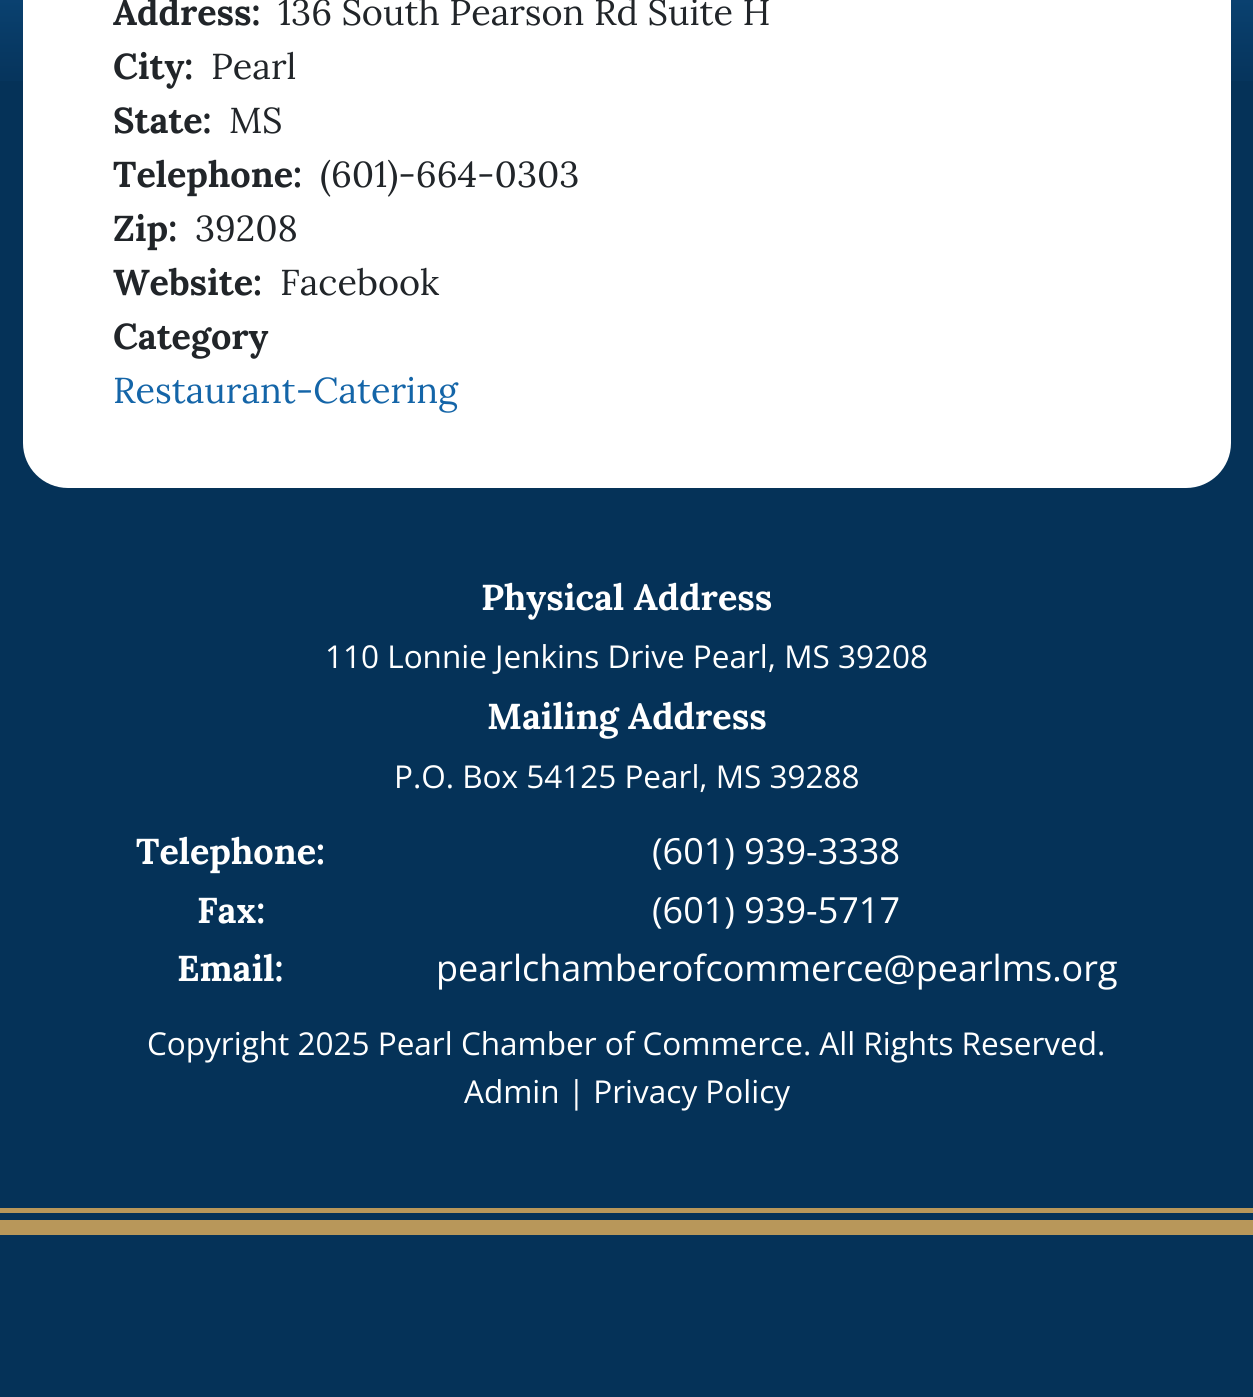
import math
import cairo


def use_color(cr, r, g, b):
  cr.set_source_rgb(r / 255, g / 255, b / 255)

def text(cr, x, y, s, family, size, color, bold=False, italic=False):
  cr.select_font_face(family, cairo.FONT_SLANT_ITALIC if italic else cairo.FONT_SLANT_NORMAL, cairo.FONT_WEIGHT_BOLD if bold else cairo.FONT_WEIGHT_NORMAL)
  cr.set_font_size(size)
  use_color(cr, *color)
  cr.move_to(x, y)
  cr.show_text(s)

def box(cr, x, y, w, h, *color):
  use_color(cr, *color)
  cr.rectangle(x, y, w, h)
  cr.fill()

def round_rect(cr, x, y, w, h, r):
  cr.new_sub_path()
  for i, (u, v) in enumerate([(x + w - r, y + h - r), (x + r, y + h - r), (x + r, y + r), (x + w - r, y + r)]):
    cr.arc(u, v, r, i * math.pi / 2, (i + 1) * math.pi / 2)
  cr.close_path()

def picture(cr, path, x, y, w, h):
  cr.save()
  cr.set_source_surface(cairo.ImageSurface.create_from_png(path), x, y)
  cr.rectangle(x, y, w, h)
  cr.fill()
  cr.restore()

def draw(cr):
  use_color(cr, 5, 50, 88)
  cr.paint()
  picture(cr, "img_01.png", 0, 0, 1253, 81)
  use_color(cr, 255, 255, 255)
  round_rect(cr, 23, -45, 1208, 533, 45)
  cr.fill()
  box(cr, 0, 1208, 1253, 5, 184, 151, 90)
  box(cr, 0, 1220, 1253, 15, 184, 151, 90)
  text(cr, 113, 25, "Address:", "Lora", 36, (33, 37, 41), bold=True)
  text(cr, 278, 25, "136 South Pearson Rd Suite H", "Lora", 36, (33, 37, 41))
  text(cr, 113, 79, "City:", "Lora", 36, (33, 37, 41), bold=True)
  text(cr, 211, 79, "Pearl", "Lora", 36, (33, 37, 41))
  text(cr, 113, 133, "State:", "Lora", 36, (33, 37, 41), bold=True)
  text(cr, 229, 133, "MS", "Lora", 36, (33, 37, 41))
  text(cr, 113, 187, "Telephone:", "Lora", 36, (33, 37, 41), bold=True)
  text(cr, 320, 187, "(601)-664-0303", "Lora", 36, (33, 37, 41))
  text(cr, 113, 241, "Zip:", "Lora", 36, (33, 37, 41), bold=True)
  text(cr, 195, 241, "39208", "Lora", 36, (33, 37, 41))
  text(cr, 113, 295, "Website:", "Lora", 36, (33, 37, 41), bold=True)
  text(cr, 280, 295, "Facebook", "Lora", 36, (33, 37, 41))
  text(cr, 113, 349, "Category", "Lora", 36, (33, 37, 41), bold=True)
  text(cr, 113, 403, "Restaurant-Catering", "Lora", 36, (20, 101, 168))
  text(cr, 481, 610, "Physical Address", "Lora", 36, (255, 255, 255), bold=True)
  text(cr, 325, 668, "110 Lonnie Jenkins Drive Pearl, MS 39208", "Open Sans", 31.5, (255, 255, 255))
  text(cr, 487, 729, "Mailing Address", "Lora", 36, (255, 255, 255), bold=True)
  text(cr, 394, 788, "P.O. Box 54125 Pearl, MS 39288", "Open Sans", 31.5, (255, 255, 255))
  text(cr, 136, 864, "Telephone:", "Lora", 36, (255, 255, 255), bold=True)
  text(cr, 652, 864, "(601) 939-3338", "Open Sans", 36, (255, 255, 255))
  text(cr, 197, 923, "Fax:", "Lora", 36, (255, 255, 255), bold=True)
  text(cr, 652, 923, "(601) 939-5717", "Open Sans", 36, (255, 255, 255))
  text(cr, 177, 981, "Email:", "Lora", 36, (255, 255, 255), bold=True)
  text(cr, 436, 981, "pearlchamberofcommerce@pearlms.org", "Open Sans", 36, (255, 255, 255))
  text(cr, 147, 1055, "Copyright 2025 Pearl Chamber of Commerce. All Rights Reserved.", "Open Sans", 31.5, (255, 255, 255))
  text(cr, 464, 1103, "Admin | Privacy Policy", "Open Sans", 31.5, (255, 255, 255))


surface = cairo.ImageSurface(cairo.FORMAT_RGB24, 1253, 1397)
cr = cairo.Context(surface)
options = cairo.FontOptions()
options.set_hint_metrics(cairo.HINT_METRICS_OFF)
options.set_hint_style(cairo.HINT_STYLE_NONE)
cr.set_font_options(options)
cr.set_miter_limit(4)
draw(cr)
surface.write_to_png("out.png")
